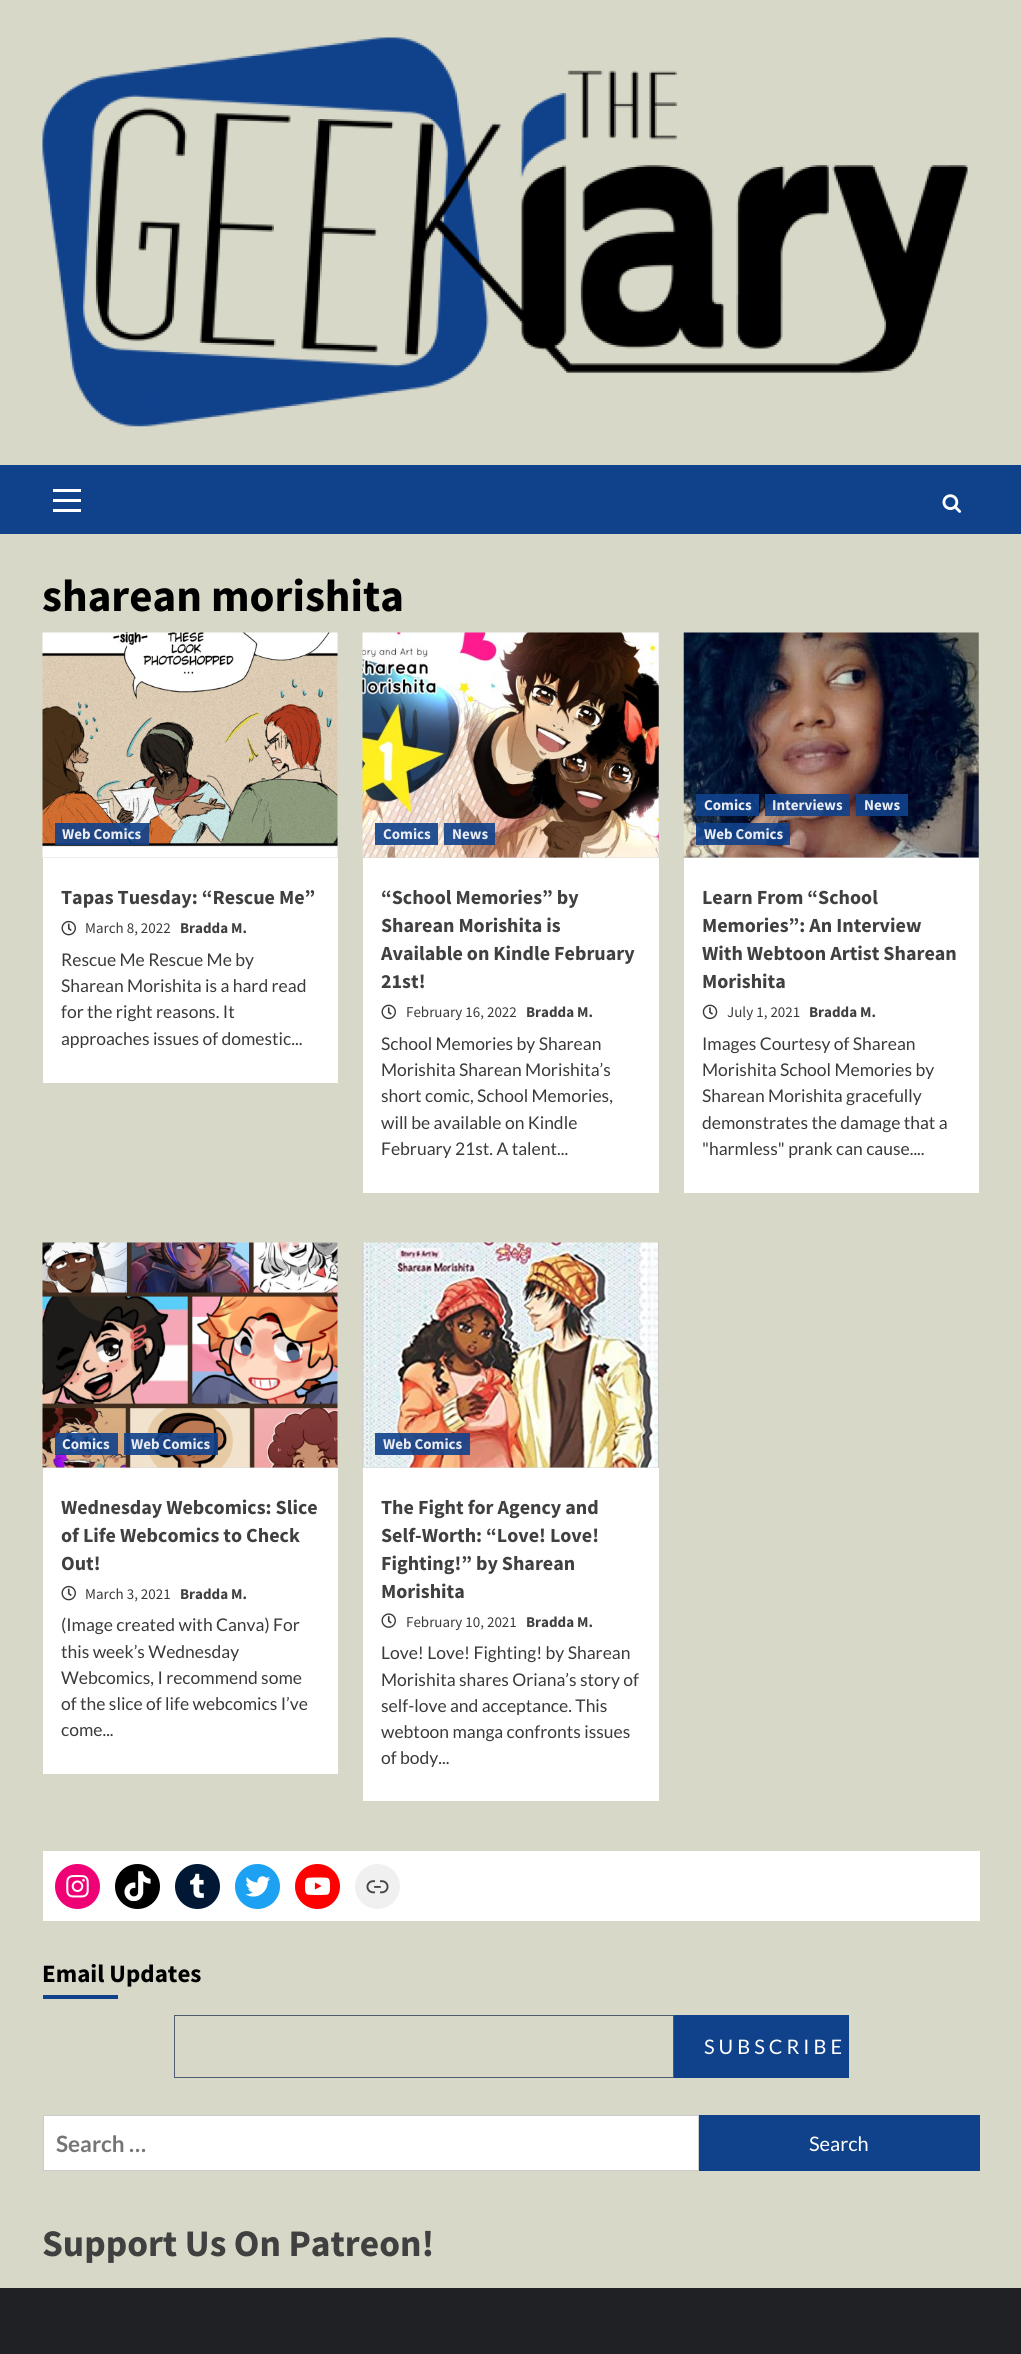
import math
import cairo


def use_color(cr, r, g, b):
  cr.set_source_rgb(r / 255, g / 255, b / 255)

def text(cr, x, y, s, family, size, color, bold=False, italic=False):
  cr.select_font_face(family, cairo.FONT_SLANT_ITALIC if italic else cairo.FONT_SLANT_NORMAL, cairo.FONT_WEIGHT_BOLD if bold else cairo.FONT_WEIGHT_NORMAL)
  cr.set_font_size(size)
  use_color(cr, *color)
  cr.move_to(x, y)
  cr.show_text(s)

def spaced_text(cr, x, y, s, letter, word):
  cr.move_to(x, y)
  for ch in s:
    cr.show_text(ch)
    cr.rel_move_to(letter + word * (ch == ' '), 0)

def box(cr, x, y, w, h, *color):
  use_color(cr, *color)
  cr.rectangle(x, y, w, h)
  cr.fill()

def picture(cr, path, x, y, w, h):
  cr.save()
  cr.set_source_surface(cairo.ImageSurface.create_from_png(path), x, y)
  cr.rectangle(x, y, w, h)
  cr.fill()
  cr.restore()

def draw(cr):
  use_color(cr, 216, 216, 200)
  cr.paint()
  picture(cr, "img_01.png", 42, 37, 926, 390)
  box(cr, 0, 465, 1021, 69, 16, 66, 140)
  box(cr, 53, 499, 28, 3, 255, 255, 255)
  box(cr, 53, 489, 28, 3, 255, 255, 255)
  box(cr, 53, 509, 28, 3, 255, 255, 255)
  picture(cr, "img_02.png", 942, 494, 20, 19)
  box(cr, 43, 858, 295, 225, 255, 255, 255)
  box(cr, 43, 633, 295, 225, 216, 216, 216)
  picture(cr, "img_03.png", 42, 632, 296, 226)
  cr.set_source_rgba(0.063, 0.259, 0.549, 0.9)
  cr.rectangle(55, 823, 94, 22)
  cr.fill()
  picture(cr, "img_04.png", 61, 920, 15, 16)
  box(cr, 363, 858, 296, 335, 255, 255, 255)
  box(cr, 363, 633, 296, 225, 216, 216, 216)
  picture(cr, "img_05.png", 362, 632, 297, 226)
  cr.set_source_rgba(0.063, 0.259, 0.549, 0.9)
  cr.rectangle(375, 823, 63, 22)
  cr.fill()
  cr.rectangle(444, 823, 51, 22)
  cr.fill()
  picture(cr, "img_06.png", 381, 1004, 15, 16)
  box(cr, 684, 858, 295, 335, 255, 255, 255)
  box(cr, 684, 633, 295, 225, 216, 216, 216)
  picture(cr, "img_07.png", 683, 632, 296, 226)
  cr.set_source_rgba(0.063, 0.259, 0.549, 0.9)
  cr.rectangle(696, 794, 63, 22)
  cr.fill()
  cr.rectangle(765, 794, 85, 22)
  cr.fill()
  cr.rectangle(856, 794, 52, 22)
  cr.fill()
  cr.rectangle(696, 823, 94, 22)
  cr.fill()
  picture(cr, "img_08.png", 702, 1004, 16, 16)
  box(cr, 43, 1468, 295, 306, 255, 255, 255)
  box(cr, 43, 1243, 295, 225, 216, 216, 216)
  picture(cr, "img_09.png", 42, 1242, 296, 226)
  cr.set_source_rgba(0.063, 0.259, 0.549, 0.9)
  cr.rectangle(55, 1433, 63, 22)
  cr.fill()
  cr.rectangle(124, 1433, 94, 22)
  cr.fill()
  picture(cr, "img_04.png", 61, 1585, 15, 16)
  box(cr, 363, 1468, 296, 333, 255, 255, 255)
  box(cr, 363, 1243, 296, 225, 216, 216, 216)
  picture(cr, "img_10.png", 362, 1242, 297, 226)
  cr.set_source_rgba(0.063, 0.259, 0.549, 0.9)
  cr.rectangle(375, 1433, 95, 22)
  cr.fill()
  picture(cr, "img_11.png", 381, 1613, 15, 15)
  box(cr, 43, 1851, 937, 70, 255, 255, 255)
  use_color(cr, 240, 0, 117)
  cr.arc(77.5, 1886.5, 22.5, 0, 2 * math.pi)
  cr.fill()
  picture(cr, "img_12.png", 66, 1875, 23, 23)
  use_color(cr, 0, 0, 0)
  cr.arc(137.5, 1886.5, 22.5, 0, 2 * math.pi)
  cr.fill()
  picture(cr, "img_13.png", 124, 1871, 27, 30)
  use_color(cr, 1, 24, 53)
  cr.arc(197.5, 1886.5, 22.5, 0, 2 * math.pi)
  cr.fill()
  picture(cr, "img_14.png", 190, 1873, 14, 25)
  use_color(cr, 29, 161, 242)
  cr.arc(257.5, 1886.5, 22.5, 0, 2 * math.pi)
  cr.fill()
  picture(cr, "img_15.png", 245, 1876, 26, 21)
  use_color(cr, 255, 0, 0)
  cr.arc(317.5, 1886.5, 22.5, 0, 2 * math.pi)
  cr.fill()
  picture(cr, "img_16.png", 305, 1877, 25, 19)
  use_color(cr, 240, 240, 240)
  cr.arc(377.5, 1886.5, 22.5, 0, 2 * math.pi)
  cr.fill()
  picture(cr, "img_17.png", 366, 1880, 23, 14)
  box(cr, 43, 1995, 75, 4, 16, 66, 140)
  cr.rectangle(174.5, 2015.5, 499, 62)
  use_color(cr, 77, 91, 115)
  cr.set_line_width(1)
  cr.stroke()
  box(cr, 674, 2015, 175, 63, 16, 66, 140)
  use_color(cr, 255, 255, 255)
  cr.rectangle(43.5, 2115.5, 655, 55)
  cr.fill_preserve()
  use_color(cr, 204, 204, 204)
  cr.stroke()
  box(cr, 699, 2115, 281, 56, 16, 66, 140)
  box(cr, 0, 2288, 1021, 66, 31, 33, 37)
  text(cr, 42, 611, "sharean morishita", "Source Sans Pro", 45, (0, 0, 0), bold=True)
  text(cr, 62, 839, "Web Comics", "Source Sans Pro", 15, (233, 237, 243), bold=True)
  text(cr, 61, 904, "Tapas Tuesday: “Rescue Me”", "Source Sans Pro", 20, (64, 64, 64), bold=True)
  text(cr, 85, 933, "March 8, 2022", "Source Sans Pro", 15, (58, 58, 58))
  text(cr, 180, 933, "Bradda M.", "Source Sans Pro", 15, (64, 64, 64), bold=True)
  text(cr, 61, 966, "Rescue Me Rescue Me by", "Lato", 17.5, (58, 58, 58))
  text(cr, 61, 992, "Sharean Morishita is a hard read", "Lato", 17.5, (58, 58, 58))
  text(cr, 61, 1018, "for the right reasons. It", "Lato", 17.5, (58, 58, 58))
  text(cr, 61, 1045, "approaches issues of domestic...", "Lato", 17.5, (58, 58, 58))
  text(cr, 383, 839, "Comics", "Source Sans Pro", 15, (233, 237, 243), bold=True)
  text(cr, 452, 839, "News", "Source Sans Pro", 15, (233, 237, 243), bold=True)
  text(cr, 381, 904, "“School Memories” by", "Source Sans Pro", 20, (64, 64, 64), bold=True)
  text(cr, 381, 932, "Sharean Morishita is", "Source Sans Pro", 20, (64, 64, 64), bold=True)
  text(cr, 381, 960, "Available on Kindle February", "Source Sans Pro", 20, (64, 64, 64), bold=True)
  text(cr, 381, 988, "21st!", "Source Sans Pro", 20, (64, 64, 64), bold=True)
  text(cr, 406, 1017, "February 16, 2022", "Source Sans Pro", 15, (58, 58, 58))
  text(cr, 526, 1017, "Bradda M.", "Source Sans Pro", 15, (64, 64, 64), bold=True)
  text(cr, 381, 1050, "School Memories by Sharean", "Lato", 17.5, (58, 58, 58))
  text(cr, 381, 1076, "Morishita Sharean Morishita’s", "Lato", 17.5, (58, 58, 58))
  text(cr, 381, 1102, "short comic, School Memories,", "Lato", 17.5, (58, 58, 58))
  text(cr, 381, 1129, "will be available on Kindle", "Lato", 17.5, (58, 58, 58))
  text(cr, 381, 1155, "February 21st. A talent...", "Lato", 17.5, (58, 58, 58))
  text(cr, 704, 810, "Comics", "Source Sans Pro", 15, (233, 237, 243), bold=True)
  text(cr, 772, 810, "Interviews", "Source Sans Pro", 15, (233, 237, 243), bold=True)
  text(cr, 864, 810, "News", "Source Sans Pro", 15, (233, 237, 243), bold=True)
  text(cr, 704, 839, "Web Comics", "Source Sans Pro", 15, (233, 237, 243), bold=True)
  text(cr, 702, 904, "Learn From “School", "Source Sans Pro", 20, (64, 64, 64), bold=True)
  text(cr, 702, 932, "Memories”: An Interview", "Source Sans Pro", 20, (64, 64, 64), bold=True)
  text(cr, 702, 960, "With Webtoon Artist Sharean", "Source Sans Pro", 20, (64, 64, 64), bold=True)
  text(cr, 702, 988, "Morishita", "Source Sans Pro", 20, (64, 64, 64), bold=True)
  text(cr, 727, 1017, "July 1, 2021", "Source Sans Pro", 15, (58, 58, 58))
  text(cr, 809, 1017, "Bradda M.", "Source Sans Pro", 15, (64, 64, 64), bold=True)
  text(cr, 702, 1050, "Images Courtesy of Sharean", "Lato", 17.5, (58, 58, 58))
  text(cr, 702, 1076, "Morishita School Memories by", "Lato", 17.5, (58, 58, 58))
  text(cr, 702, 1102, "Sharean Morishita gracefully", "Lato", 17.5, (58, 58, 58))
  text(cr, 702, 1129, "demonstrates the damage that a", "Lato", 17.5, (58, 58, 58))
  text(cr, 702, 1155, "\"harmless\" prank can cause....", "Lato", 17.5, (58, 58, 58))
  text(cr, 62, 1449, "Comics", "Source Sans Pro", 15, (233, 237, 243), bold=True)
  text(cr, 131, 1449, "Web Comics", "Source Sans Pro", 15, (233, 237, 243), bold=True)
  text(cr, 61, 1514, "Wednesday Webcomics: Slice", "Source Sans Pro", 20, (64, 64, 64), bold=True)
  text(cr, 61, 1542, "of Life Webcomics to Check", "Source Sans Pro", 20, (64, 64, 64), bold=True)
  text(cr, 61, 1570, "Out!", "Source Sans Pro", 20, (64, 64, 64), bold=True)
  text(cr, 85, 1599, "March 3, 2021", "Source Sans Pro", 15, (58, 58, 58))
  text(cr, 180, 1599, "Bradda M.", "Source Sans Pro", 15, (64, 64, 64), bold=True)
  text(cr, 61, 1631, "(Image created with Canva) For", "Lato", 17.5, (58, 58, 58))
  text(cr, 61, 1658, "this week’s Wednesday", "Lato", 17.5, (58, 58, 58))
  text(cr, 61, 1684, "Webcomics, I recommend some", "Lato", 17.5, (58, 58, 58))
  text(cr, 61, 1710, "of the slice of life webcomics I’ve", "Lato", 17.5, (58, 58, 58))
  text(cr, 61, 1736, "come...", "Lato", 17.5, (58, 58, 58))
  text(cr, 383, 1449, "Web Comics", "Source Sans Pro", 15, (233, 237, 243), bold=True)
  text(cr, 381, 1514, "The Fight for Agency and", "Source Sans Pro", 20, (64, 64, 64), bold=True)
  text(cr, 381, 1542, "Self-Worth: “Love! Love!", "Source Sans Pro", 20, (64, 64, 64), bold=True)
  text(cr, 381, 1570, "Fighting!” by Sharean", "Source Sans Pro", 20, (64, 64, 64), bold=True)
  text(cr, 381, 1598, "Morishita", "Source Sans Pro", 20, (64, 64, 64), bold=True)
  text(cr, 406, 1627, "February 10, 2021", "Source Sans Pro", 15, (58, 58, 58))
  text(cr, 526, 1627, "Bradda M.", "Source Sans Pro", 15, (64, 64, 64), bold=True)
  text(cr, 381, 1659, "Love! Love! Fighting! by Sharean", "Lato", 17.5, (58, 58, 58))
  text(cr, 381, 1686, "Morishita shares Oriana’s story of", "Lato", 17.5, (58, 58, 58))
  text(cr, 381, 1712, "self-love and acceptance. This", "Lato", 17.5, (58, 58, 58))
  text(cr, 381, 1738, "webtoon manga confronts issues", "Lato", 17.5, (58, 58, 58))
  text(cr, 381, 1764, "of body...", "Lato", 17.5, (58, 58, 58))
  text(cr, 42, 1982, "Email Updates", "Source Sans Pro", 25, (0, 0, 0), bold=True)
  cr.select_font_face("Lato")
  cr.set_font_size(20)
  use_color(cr, 255, 255, 255)
  spaced_text(cr, 704, 2054, "SUBSCRIBE", 4, 0)
  text(cr, 56, 2152, "Search …", "Lato", 22.5, (117, 117, 117), bold=True)
  text(cr, 809, 2151, "Search", "Lato", 20, (255, 255, 255))
  text(cr, 42, 2256, "Support Us On Patreon!", "Source Sans Pro", 37.5, (64, 64, 64), bold=True)


surface = cairo.ImageSurface(cairo.FORMAT_RGB24, 1021, 2354)
cr = cairo.Context(surface)
options = cairo.FontOptions()
options.set_hint_metrics(cairo.HINT_METRICS_OFF)
options.set_hint_style(cairo.HINT_STYLE_NONE)
cr.set_font_options(options)
cr.set_miter_limit(4)
draw(cr)
surface.write_to_png("out.png")
